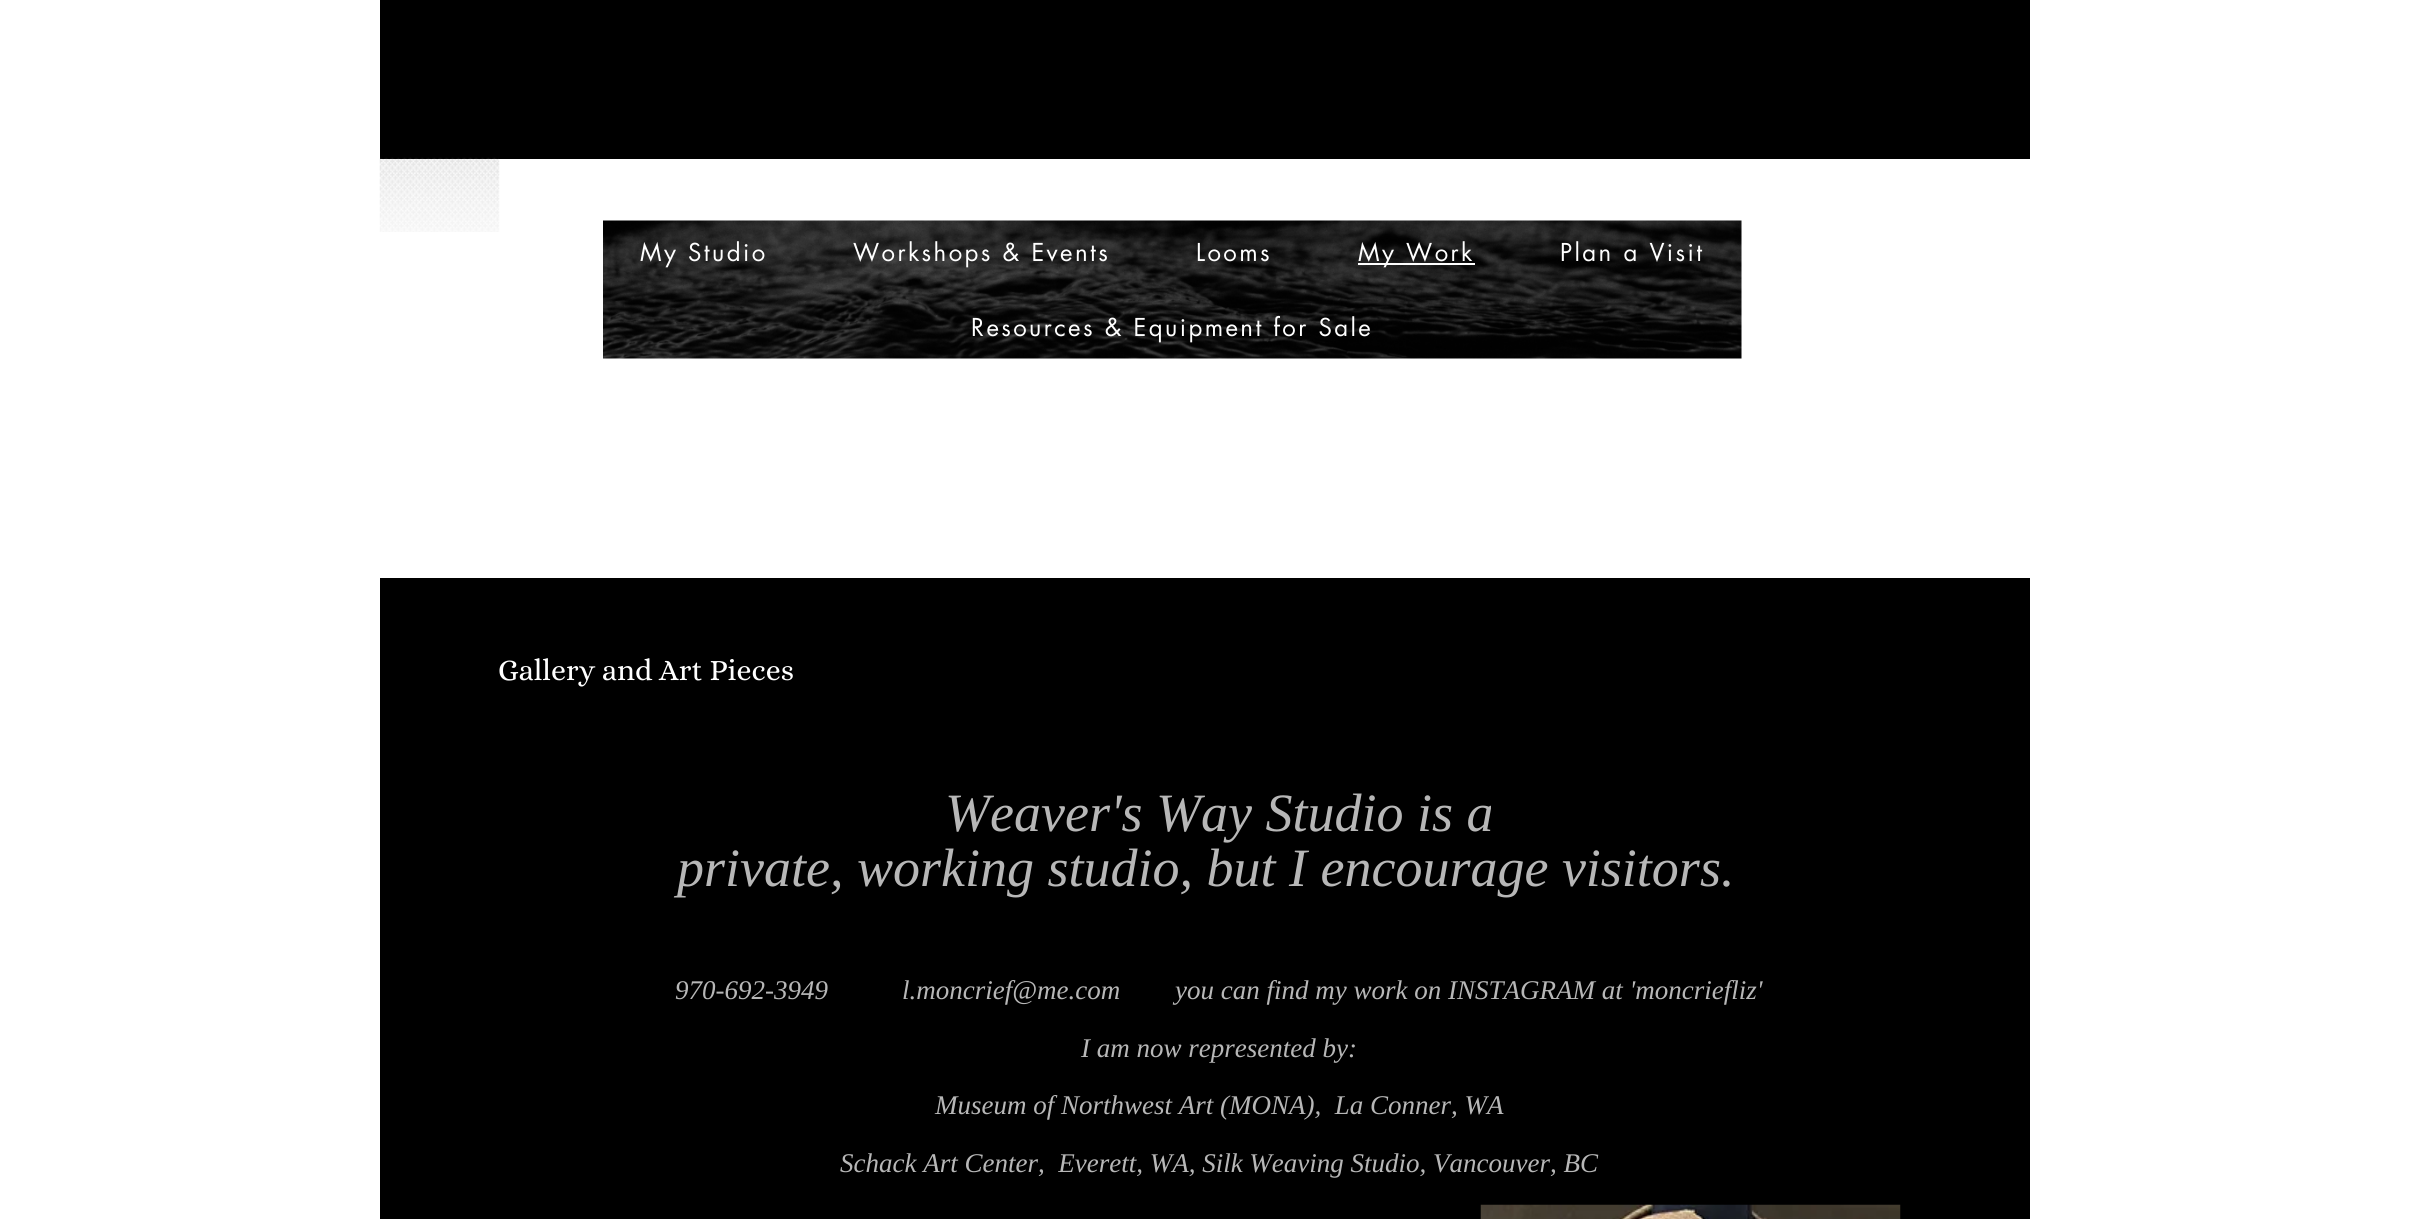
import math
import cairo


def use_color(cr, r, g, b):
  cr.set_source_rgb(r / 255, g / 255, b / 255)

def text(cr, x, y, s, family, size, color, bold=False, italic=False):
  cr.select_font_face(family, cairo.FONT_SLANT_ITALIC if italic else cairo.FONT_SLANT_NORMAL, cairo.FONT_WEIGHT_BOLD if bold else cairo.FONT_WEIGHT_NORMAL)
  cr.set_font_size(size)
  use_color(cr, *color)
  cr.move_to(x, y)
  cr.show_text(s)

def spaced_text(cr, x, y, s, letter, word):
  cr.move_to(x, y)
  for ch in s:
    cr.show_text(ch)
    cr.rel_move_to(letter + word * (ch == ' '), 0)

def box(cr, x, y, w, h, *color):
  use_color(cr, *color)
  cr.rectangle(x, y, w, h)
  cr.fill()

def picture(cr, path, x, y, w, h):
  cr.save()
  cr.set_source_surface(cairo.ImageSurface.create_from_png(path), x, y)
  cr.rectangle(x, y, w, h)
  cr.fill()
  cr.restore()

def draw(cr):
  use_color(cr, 255, 255, 255)
  cr.paint()
  box(cr, 380, 0, 1650, 159, 0, 0, 0)
  picture(cr, "img_01.png", 379, 157, 121, 75)
  picture(cr, "img_02.png", 603, 220, 1139, 139)
  box(cr, 1358, 263, 117, 2, 255, 255, 255)
  box(cr, 380, 578, 1650, 641, 0, 0, 0)
  picture(cr, "img_03.png", 1480, 1204, 421, 15)
  cr.select_font_face("futura")
  cr.set_font_size(24)
  use_color(cr, 255, 255, 255)
  spaced_text(cr, 640, 261, "My Studio", 2.4, 0)
  spaced_text(cr, 853, 261, "Workshops & Events", 2.4, 0)
  spaced_text(cr, 1196, 261, "Looms", 2.4, 0)
  spaced_text(cr, 1358, 261, "My Work", 2.4, 0)
  spaced_text(cr, 1560, 261, "Plan a Visit", 2.4, 0)
  spaced_text(cr, 971, 336, "Resources & Equipment for Sale", 2.4, 0)
  text(cr, 498, 680, "Gallery and Art Pieces", "Alice", 30, (255, 255, 255))
  text(cr, 945, 831, "Weaver's Way Studio is a", "Liberation Serif", 54, (183, 183, 183), italic=True)
  text(cr, 677, 886, "private, working studio, but I encourage visitors.", "Liberation Serif", 54, (183, 183, 183), italic=True)
  text(cr, 675, 999, "970-692-3949", "Liberation Serif", 27, (183, 183, 183), italic=True)
  text(cr, 902, 999, "l.moncrief@me.com", "Liberation Serif", 27, (183, 183, 183), italic=True)
  text(cr, 1175, 999, "you can find my work on INSTAGRAM at 'moncriefliz'", "Liberation Serif", 27, (183, 183, 183), italic=True)
  text(cr, 1081, 1057, "I am now represented by:", "Liberation Serif", 27, (183, 183, 183), italic=True)
  text(cr, 935, 1114, "Museum of Northwest Art (MONA),  La Conner, WA", "Liberation Serif", 27, (183, 183, 183), italic=True)
  text(cr, 840, 1172, "Schack Art Center,  Everett, WA, Silk Weaving Studio, Vancouver, BC", "Liberation Serif", 27, (183, 183, 183), italic=True)


surface = cairo.ImageSurface(cairo.FORMAT_RGB24, 2429, 1219)
cr = cairo.Context(surface)
options = cairo.FontOptions()
options.set_hint_metrics(cairo.HINT_METRICS_OFF)
options.set_hint_style(cairo.HINT_STYLE_NONE)
cr.set_font_options(options)
cr.set_miter_limit(4)
draw(cr)
surface.write_to_png("out.png")
